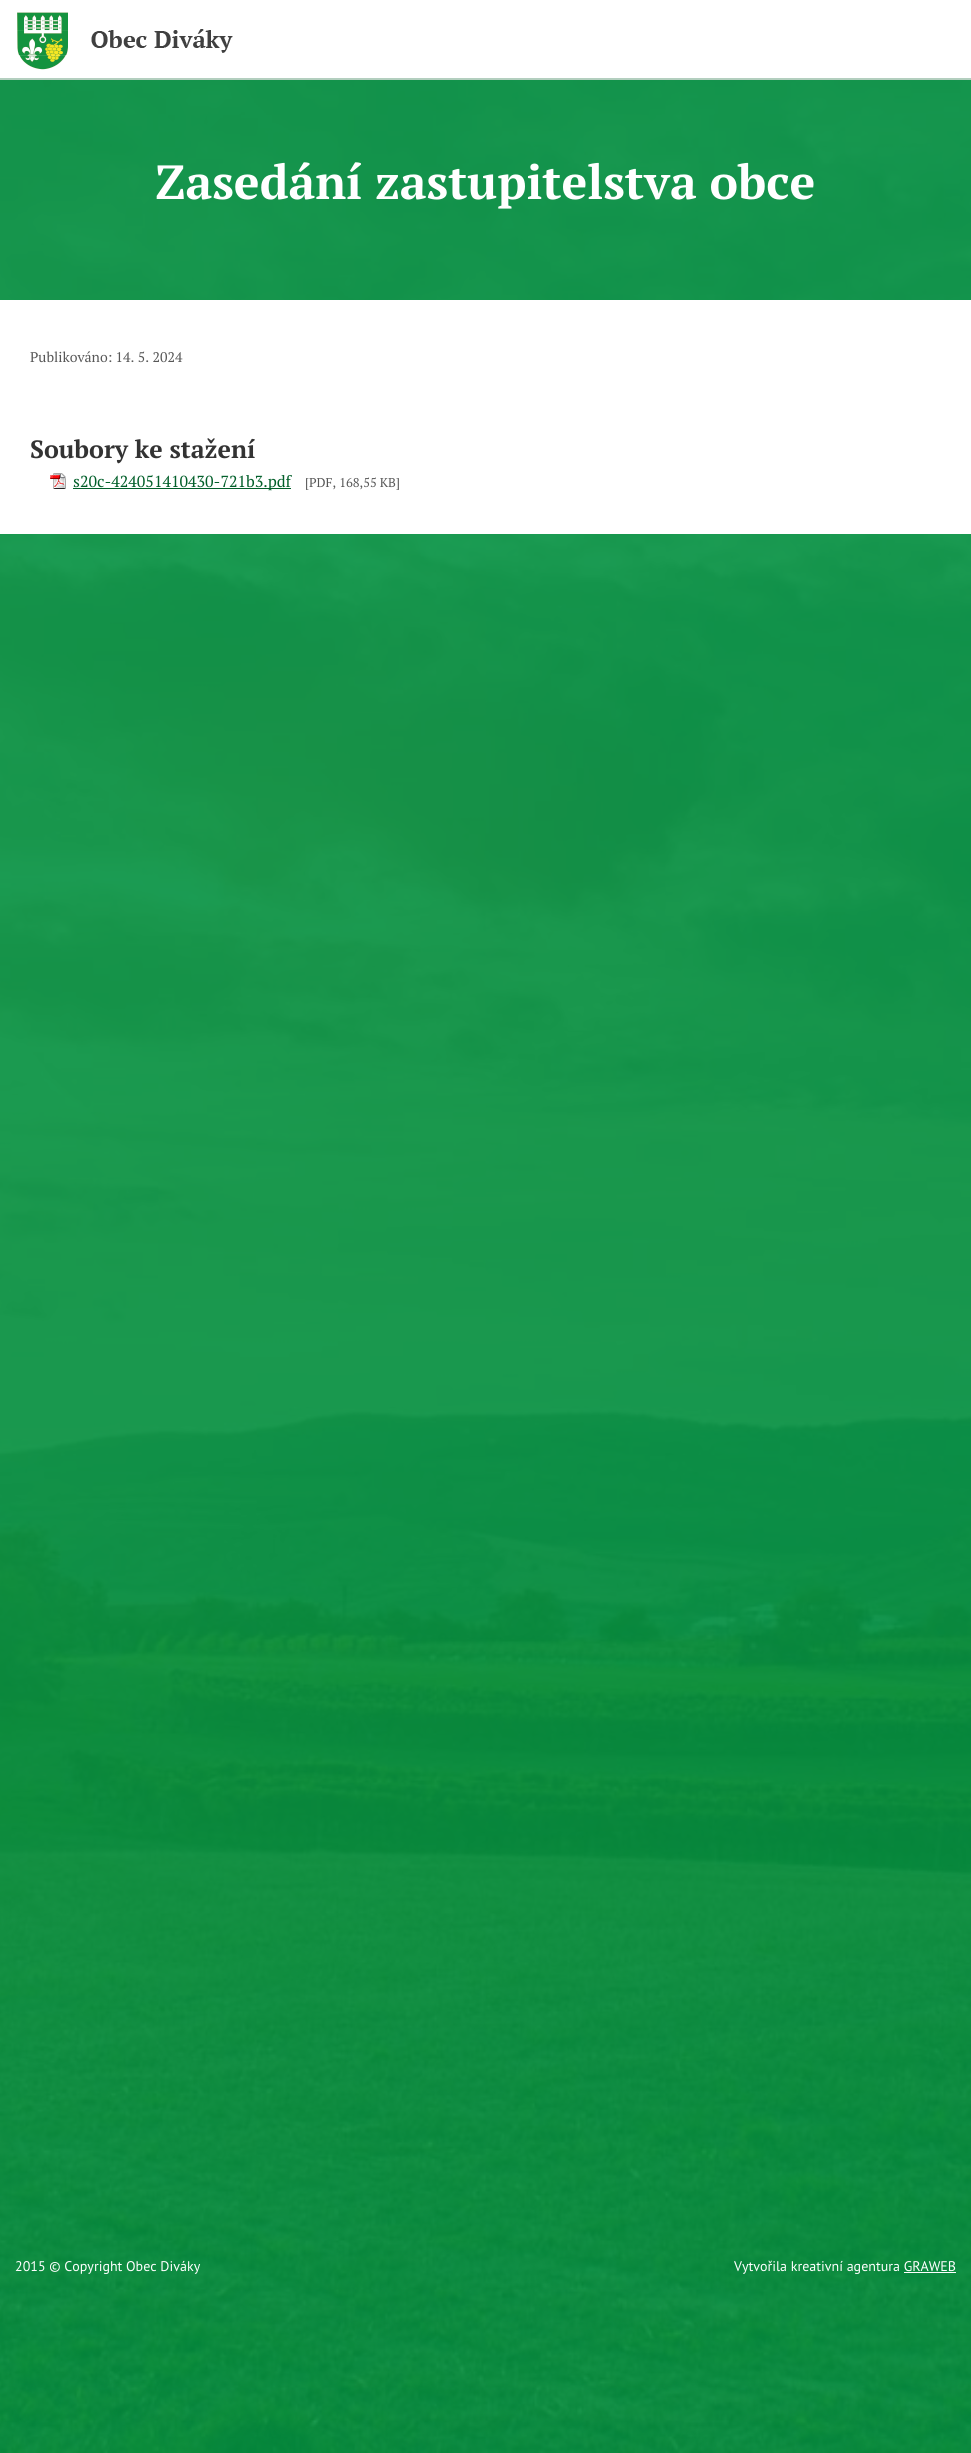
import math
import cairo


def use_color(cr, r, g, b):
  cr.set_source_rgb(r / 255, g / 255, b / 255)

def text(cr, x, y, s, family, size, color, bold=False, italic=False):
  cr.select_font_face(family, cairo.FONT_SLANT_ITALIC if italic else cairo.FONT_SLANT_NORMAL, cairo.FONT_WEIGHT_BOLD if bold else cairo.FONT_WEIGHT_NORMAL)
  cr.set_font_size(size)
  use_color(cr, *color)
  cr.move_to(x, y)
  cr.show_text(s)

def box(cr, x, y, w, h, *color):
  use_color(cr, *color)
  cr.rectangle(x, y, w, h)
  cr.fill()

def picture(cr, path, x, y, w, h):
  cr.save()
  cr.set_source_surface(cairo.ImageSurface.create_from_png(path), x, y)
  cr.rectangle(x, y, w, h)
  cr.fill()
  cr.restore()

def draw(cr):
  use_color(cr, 255, 255, 255)
  cr.paint()
  picture(cr, "img_01.png", 0, 80, 971, 2373)
  box(cr, 0, 78, 971, 2, 179, 207, 191)
  picture(cr, "img_02.png", 17, 12, 216, 58)
  box(cr, 0, 300, 971, 234, 255, 255, 255)
  picture(cr, "img_03.png", 50, 473, 16, 16)
  box(cr, 73, 488, 218, 1, 2, 95, 42)
  box(cr, 904, 2272, 52, 1, 255, 255, 255)
  text(cr, 155, 199, "Zasedání zastupitelstva obce", "PT Serif", 48, (255, 255, 255), bold=True)
  text(cr, 30, 362, "Publikováno: 14. 5. 2024", "PT Serif", 14, (87, 87, 87))
  text(cr, 30, 458, "Soubory ke stažení", "PT Serif", 25, (51, 51, 51), bold=True)
  text(cr, 73, 487, "s20c-424051410430-721b3.pdf", "PT Serif", 16, (2, 95, 42))
  text(cr, 305, 487, "[PDF, 168,55 KB]", "PT Serif", 12.75, (87, 87, 87))
  text(cr, 15, 2271, "2015 © Copyright Obec Diváky", "PT Sans", 14, (255, 255, 255))
  text(cr, 734, 2271, "Vytvořila kreativní agentura GRAWEB", "PT Sans", 14, (255, 255, 255))


surface = cairo.ImageSurface(cairo.FORMAT_RGB24, 971, 2453)
cr = cairo.Context(surface)
options = cairo.FontOptions()
options.set_hint_metrics(cairo.HINT_METRICS_OFF)
options.set_hint_style(cairo.HINT_STYLE_NONE)
cr.set_font_options(options)
cr.set_miter_limit(4)
draw(cr)
surface.write_to_png("out.png")
